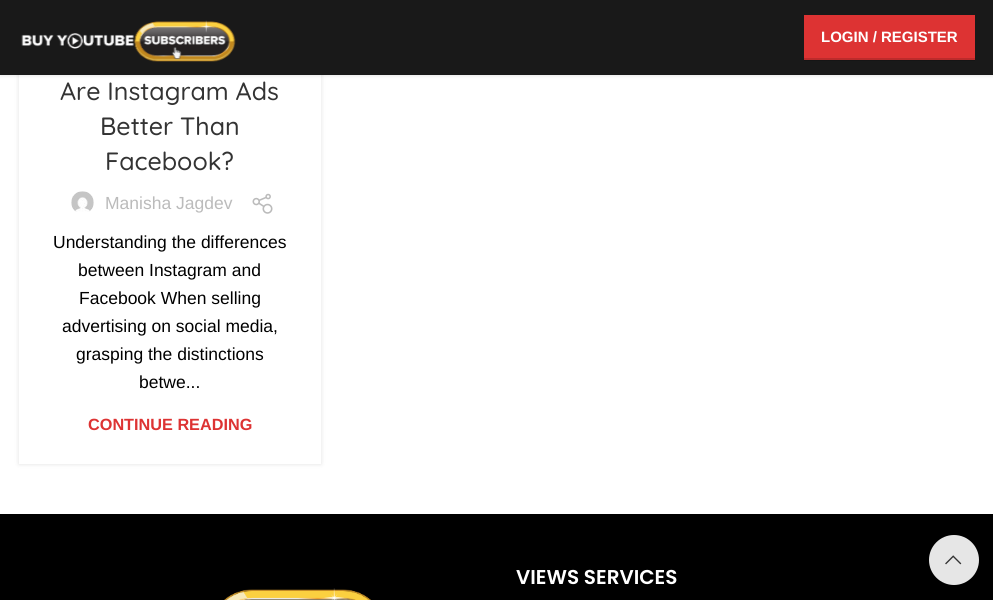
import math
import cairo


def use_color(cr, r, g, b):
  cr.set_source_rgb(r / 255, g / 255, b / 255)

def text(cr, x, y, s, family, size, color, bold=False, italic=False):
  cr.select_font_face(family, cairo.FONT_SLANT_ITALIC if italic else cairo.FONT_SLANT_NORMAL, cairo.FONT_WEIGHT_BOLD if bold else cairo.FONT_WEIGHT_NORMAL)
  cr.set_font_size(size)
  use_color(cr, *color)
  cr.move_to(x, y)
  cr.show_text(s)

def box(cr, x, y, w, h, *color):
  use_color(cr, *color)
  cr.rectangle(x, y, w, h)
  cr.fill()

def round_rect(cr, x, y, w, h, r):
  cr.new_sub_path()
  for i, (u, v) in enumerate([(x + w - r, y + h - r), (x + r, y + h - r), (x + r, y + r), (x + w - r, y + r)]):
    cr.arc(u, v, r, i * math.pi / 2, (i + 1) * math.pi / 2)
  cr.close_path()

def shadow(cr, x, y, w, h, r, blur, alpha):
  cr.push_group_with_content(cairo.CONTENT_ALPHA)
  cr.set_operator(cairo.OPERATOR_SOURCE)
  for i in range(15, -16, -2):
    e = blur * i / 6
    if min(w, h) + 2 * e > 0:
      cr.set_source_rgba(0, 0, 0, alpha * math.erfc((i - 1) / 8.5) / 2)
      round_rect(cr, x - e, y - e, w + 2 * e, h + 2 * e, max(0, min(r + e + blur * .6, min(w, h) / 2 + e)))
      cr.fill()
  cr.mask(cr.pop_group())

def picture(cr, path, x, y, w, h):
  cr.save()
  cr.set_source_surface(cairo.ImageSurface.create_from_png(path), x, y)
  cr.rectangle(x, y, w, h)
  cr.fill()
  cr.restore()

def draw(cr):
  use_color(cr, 255, 255, 255)
  cr.paint()
  use_color(cr, 0, 0, 0)
  shadow(cr, 19, 43, 302, 421, 0, 2.5, 0.12)
  box(cr, 19, 75, 302, 389, 255, 255, 255)
  use_color(cr, 0, 0, 0)
  shadow(cr, 0, 1, 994, 75, 0, 2, 0.1)
  box(cr, 0, 0, 993, 75, 25, 25, 25)
  box(cr, 804, 60, 171, 1, 21, 21, 21)
  picture(cr, "img_01.png", 21, 20, 215, 42)
  box(cr, 804, 15, 171, 43, 221, 51, 51)
  box(cr, 804, 58, 171, 2, 188, 43, 43)
  picture(cr, "img_02.png", 71, 191, 23, 21)
  picture(cr, "img_03.png", 252, 193, 21, 21)
  box(cr, 0, 514, 993, 86, 0, 0, 0)
  picture(cr, "img_04.png", 224, 588, 147, 12)
  use_color(cr, 230, 230, 230)
  cr.arc(954, 560, 25, 0, 2 * math.pi)
  cr.fill()
  picture(cr, "img_05.png", 945, 555, 17, 10)
  text(cr, 821, 42, "LOGIN / REGISTER", "Liberation Sans", 15, (255, 255, 255), bold=True)
  text(cr, 60, 100, "Are Instagram Ads", "Quicksand Medium", 25, (51, 51, 51))
  text(cr, 100, 135, "Better Than", "Quicksand Medium", 25, (51, 51, 51))
  text(cr, 105, 170, "Facebook?", "Quicksand Medium", 25, (51, 51, 51))
  text(cr, 105, 209, "Manisha Jagdev", "Liberation Sans", 17.5, (187, 187, 187))
  text(cr, 53, 248, "Understanding the differences", "Liberation Sans", 17.5, (0, 0, 0))
  text(cr, 78, 276, "between Instagram and", "Liberation Sans", 17.5, (0, 0, 0))
  text(cr, 79, 304, "Facebook When selling", "Liberation Sans", 17.5, (0, 0, 0))
  text(cr, 62, 332, "advertising on social media,", "Liberation Sans", 17.5, (0, 0, 0))
  text(cr, 76, 360, "grasping the distinctions", "Liberation Sans", 17.5, (0, 0, 0))
  text(cr, 139, 388, "betwe...", "Liberation Sans", 17.5, (0, 0, 0))
  text(cr, 88, 430, "CONTINUE READING", "Liberation Sans", 16.25, (221, 51, 51), bold=True)
  text(cr, 516, 584, "VIEWS SERVICES", "Poppins SemiBold", 20, (255, 255, 255))


surface = cairo.ImageSurface(cairo.FORMAT_RGB24, 993, 600)
cr = cairo.Context(surface)
options = cairo.FontOptions()
options.set_hint_metrics(cairo.HINT_METRICS_OFF)
options.set_hint_style(cairo.HINT_STYLE_NONE)
cr.set_font_options(options)
cr.set_miter_limit(4)
draw(cr)
surface.write_to_png("out.png")
